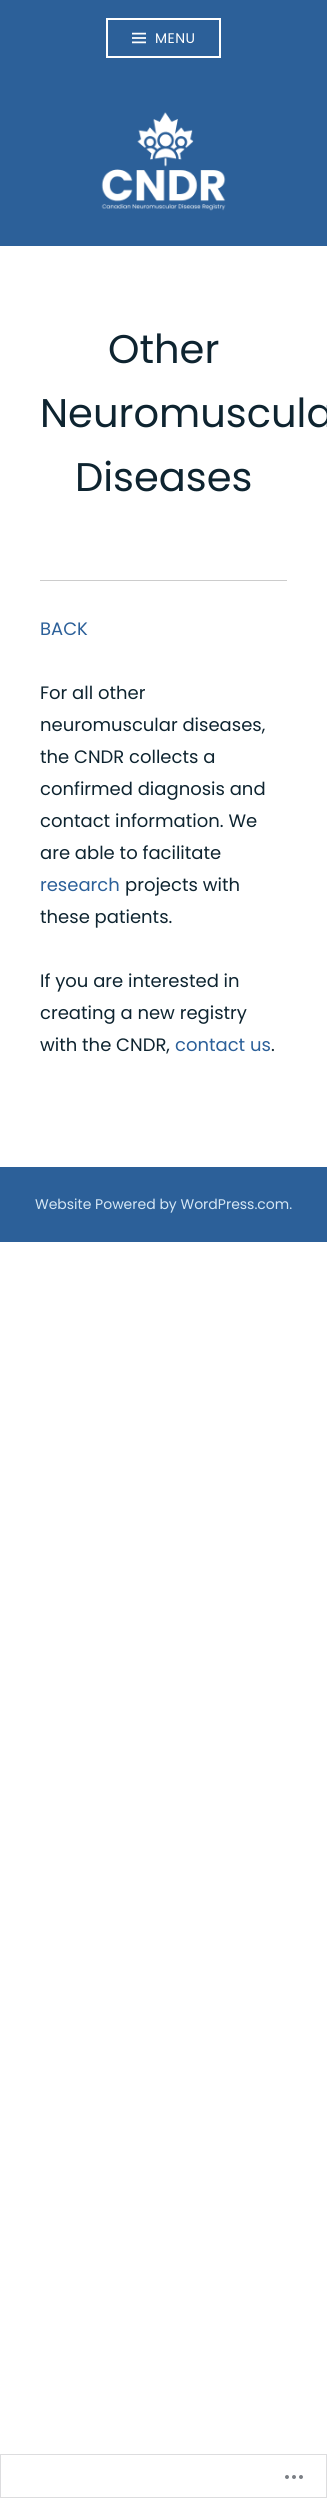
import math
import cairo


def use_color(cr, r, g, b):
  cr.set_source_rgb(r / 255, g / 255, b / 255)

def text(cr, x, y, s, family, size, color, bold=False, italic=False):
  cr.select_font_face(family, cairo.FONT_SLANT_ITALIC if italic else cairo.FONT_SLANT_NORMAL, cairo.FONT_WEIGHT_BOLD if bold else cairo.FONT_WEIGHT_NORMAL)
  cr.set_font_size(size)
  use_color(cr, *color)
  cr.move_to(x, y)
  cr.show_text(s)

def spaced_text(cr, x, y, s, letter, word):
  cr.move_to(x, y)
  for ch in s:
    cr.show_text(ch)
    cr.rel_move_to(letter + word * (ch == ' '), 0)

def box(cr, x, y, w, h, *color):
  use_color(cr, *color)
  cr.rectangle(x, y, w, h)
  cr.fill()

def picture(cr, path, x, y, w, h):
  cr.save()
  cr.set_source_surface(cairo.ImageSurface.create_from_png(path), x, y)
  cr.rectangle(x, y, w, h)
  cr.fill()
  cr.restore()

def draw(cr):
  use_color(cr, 255, 255, 255)
  cr.paint()
  box(cr, 0, 0, 327, 76, 44, 96, 153)
  cr.rectangle(107, 19, 113, 38)
  use_color(cr, 255, 255, 255)
  cr.stroke()
  picture(cr, "img_01.png", 132, 32, 14, 12)
  picture(cr, "img_02.png", 0, 76, 327, 170)
  box(cr, 40, 580, 247, 1, 204, 204, 204)
  box(cr, 0, 1167, 327, 75, 44, 96, 153)
  cr.rectangle(0.5, 2454.5, 326, 43)
  use_color(cr, 221, 221, 223)
  cr.set_line_width(1)
  cr.stroke()
  picture(cr, "img_03.png", 285, 2475, 18, 4)
  cr.select_font_face("Poppins")
  cr.set_font_size(14)
  use_color(cr, 255, 255, 255)
  spaced_text(cr, 155, 43, "MENU", 0.5, 0)
  text(cr, 108, 363, "Other", "Poppins", 40, (14, 36, 48))
  text(cr, 40, 427, "Neuromuscula", "Poppins", 40, (14, 36, 48))
  text(cr, 75, 491, "Diseases", "Poppins", 40, (14, 36, 48))
  text(cr, 40, 635, "BACK", "Poppins", 18, (44, 96, 153))
  text(cr, 40, 699, "For all other", "Poppins", 18, (14, 36, 48))
  text(cr, 40, 731, "neuromuscular diseases,", "Poppins", 18, (14, 36, 48))
  text(cr, 40, 763, "the CNDR collects a", "Poppins", 18, (14, 36, 48))
  text(cr, 40, 795, "confirmed diagnosis and", "Poppins", 18, (14, 36, 48))
  text(cr, 40, 827, "contact information. We", "Poppins", 18, (14, 36, 48))
  text(cr, 40, 859, "are able to facilitate", "Poppins", 18, (14, 36, 48))
  text(cr, 40, 891, "research", "Poppins", 18, (44, 96, 153))
  text(cr, 125, 891, "projects with", "Poppins", 18, (14, 36, 48))
  text(cr, 40, 923, "these patients.", "Poppins", 18, (14, 36, 48))
  text(cr, 40, 987, "If you are interested in", "Poppins", 18, (14, 36, 48))
  text(cr, 40, 1019, "creating a new registry", "Poppins", 18, (14, 36, 48))
  text(cr, 40, 1051, "with the CNDR,", "Poppins", 18, (14, 36, 48))
  text(cr, 175, 1051, "contact us", "Poppins", 18, (44, 96, 153))
  text(cr, 271, 1051, ".", "Poppins", 18, (14, 36, 48))
  text(cr, 35, 1209, "Website Powered by WordPress.com.", "Poppins", 14, (213, 231, 245))


surface = cairo.ImageSurface(cairo.FORMAT_RGB24, 327, 2498)
cr = cairo.Context(surface)
options = cairo.FontOptions()
options.set_hint_metrics(cairo.HINT_METRICS_OFF)
options.set_hint_style(cairo.HINT_STYLE_NONE)
cr.set_font_options(options)
cr.set_miter_limit(4)
draw(cr)
surface.write_to_png("out.png")
